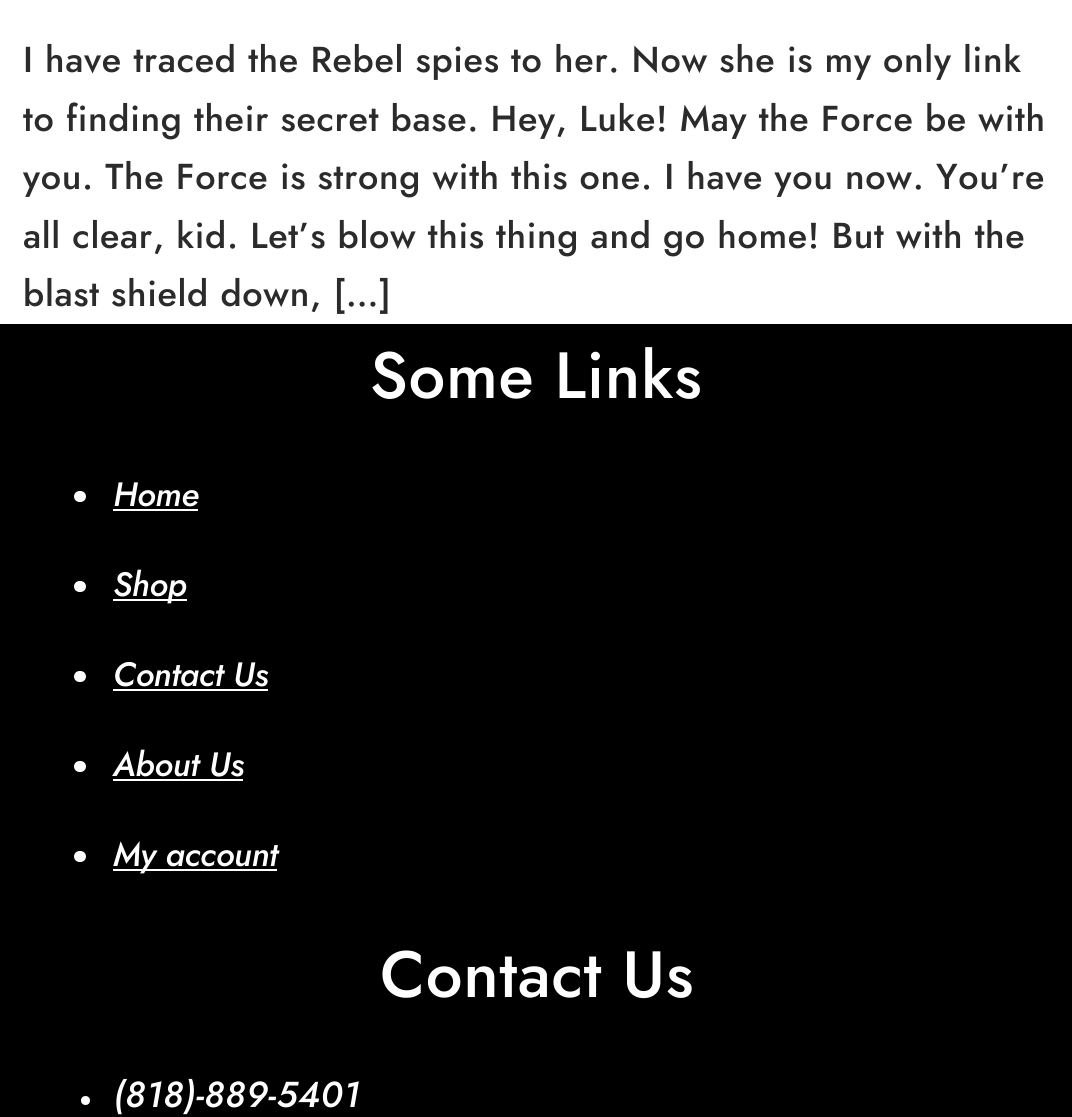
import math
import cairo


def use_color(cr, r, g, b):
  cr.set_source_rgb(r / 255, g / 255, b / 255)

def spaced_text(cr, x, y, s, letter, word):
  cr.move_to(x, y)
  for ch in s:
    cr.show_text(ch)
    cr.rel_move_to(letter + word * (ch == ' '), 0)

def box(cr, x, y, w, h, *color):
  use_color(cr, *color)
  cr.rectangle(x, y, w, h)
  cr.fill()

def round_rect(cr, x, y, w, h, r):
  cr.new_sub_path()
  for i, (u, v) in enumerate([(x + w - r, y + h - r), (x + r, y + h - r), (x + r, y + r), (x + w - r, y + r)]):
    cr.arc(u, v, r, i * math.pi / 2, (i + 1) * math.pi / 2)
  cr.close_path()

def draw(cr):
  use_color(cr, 255, 255, 255)
  cr.paint()
  box(cr, 0, 324, 1072, 793, 0, 0, 0)
  use_color(cr, 255, 255, 255)
  round_rect(cr, 74, 491, 12, 11, 5.5)
  cr.fill()
  box(cr, 113, 509, 85, 2, 255, 255, 255)
  round_rect(cr, 74, 581, 12, 11, 5.5)
  cr.fill()
  box(cr, 113, 599, 74, 2, 255, 255, 255)
  round_rect(cr, 74, 671, 12, 11, 5.5)
  cr.fill()
  box(cr, 113, 689, 155, 2, 255, 255, 255)
  round_rect(cr, 74, 761, 12, 11, 5.5)
  cr.fill()
  box(cr, 113, 779, 130, 2, 255, 255, 255)
  round_rect(cr, 74, 851, 12, 11, 5.5)
  cr.fill()
  box(cr, 113, 869, 164, 2, 255, 255, 255)
  cr.arc(85.5, 1100.5, 4.5, 0, 2 * math.pi)
  cr.fill()
  cr.select_font_face("Jost Medium")
  cr.set_font_size(36)
  use_color(cr, 43, 43, 43)
  spaced_text(cr, 23, 72, "I have traced the Rebel spies to her. Now she is my only link", 0.67, 0)
  spaced_text(cr, 23, 131, "to finding their secret base. Hey, Luke! May the Force be with", 0.67, 0)
  spaced_text(cr, 23, 189, "you. The Force is strong with this one. I have you now. You’re", 0.67, 0)
  spaced_text(cr, 23, 248, "all clear, kid. Let’s blow this thing and go home! But with the", 0.67, 0)
  spaced_text(cr, 23, 306, "blast shield down, […]", 0.67, 0)
  cr.set_font_size(65.25)
  use_color(cr, 255, 255, 255)
  spaced_text(cr, 370, 398, "Some Links", 0.67, 0)
  cr.select_font_face("Jost Medium", cairo.FONT_SLANT_ITALIC)
  cr.set_font_size(33.75)
  spaced_text(cr, 113, 506, "Home", -0.25, 0)
  spaced_text(cr, 113, 596, "Shop", -0.25, 0)
  spaced_text(cr, 113, 686, "Contact Us", -0.25, 0)
  spaced_text(cr, 113, 776, "About Us", -0.25, 0)
  spaced_text(cr, 113, 866, "My account", -0.25, 0)
  cr.select_font_face("Jost Medium")
  cr.set_font_size(65.25)
  spaced_text(cr, 380, 997, "Contact Us", 0.67, 0)
  cr.select_font_face("Jost Medium", cairo.FONT_SLANT_ITALIC)
  cr.set_font_size(36)
  spaced_text(cr, 113, 1107, "(818)-889-5401", 0.67, 0)


surface = cairo.ImageSurface(cairo.FORMAT_RGB24, 1072, 1117)
cr = cairo.Context(surface)
options = cairo.FontOptions()
options.set_hint_metrics(cairo.HINT_METRICS_OFF)
options.set_hint_style(cairo.HINT_STYLE_NONE)
cr.set_font_options(options)
cr.set_miter_limit(4)
draw(cr)
surface.write_to_png("out.png")
